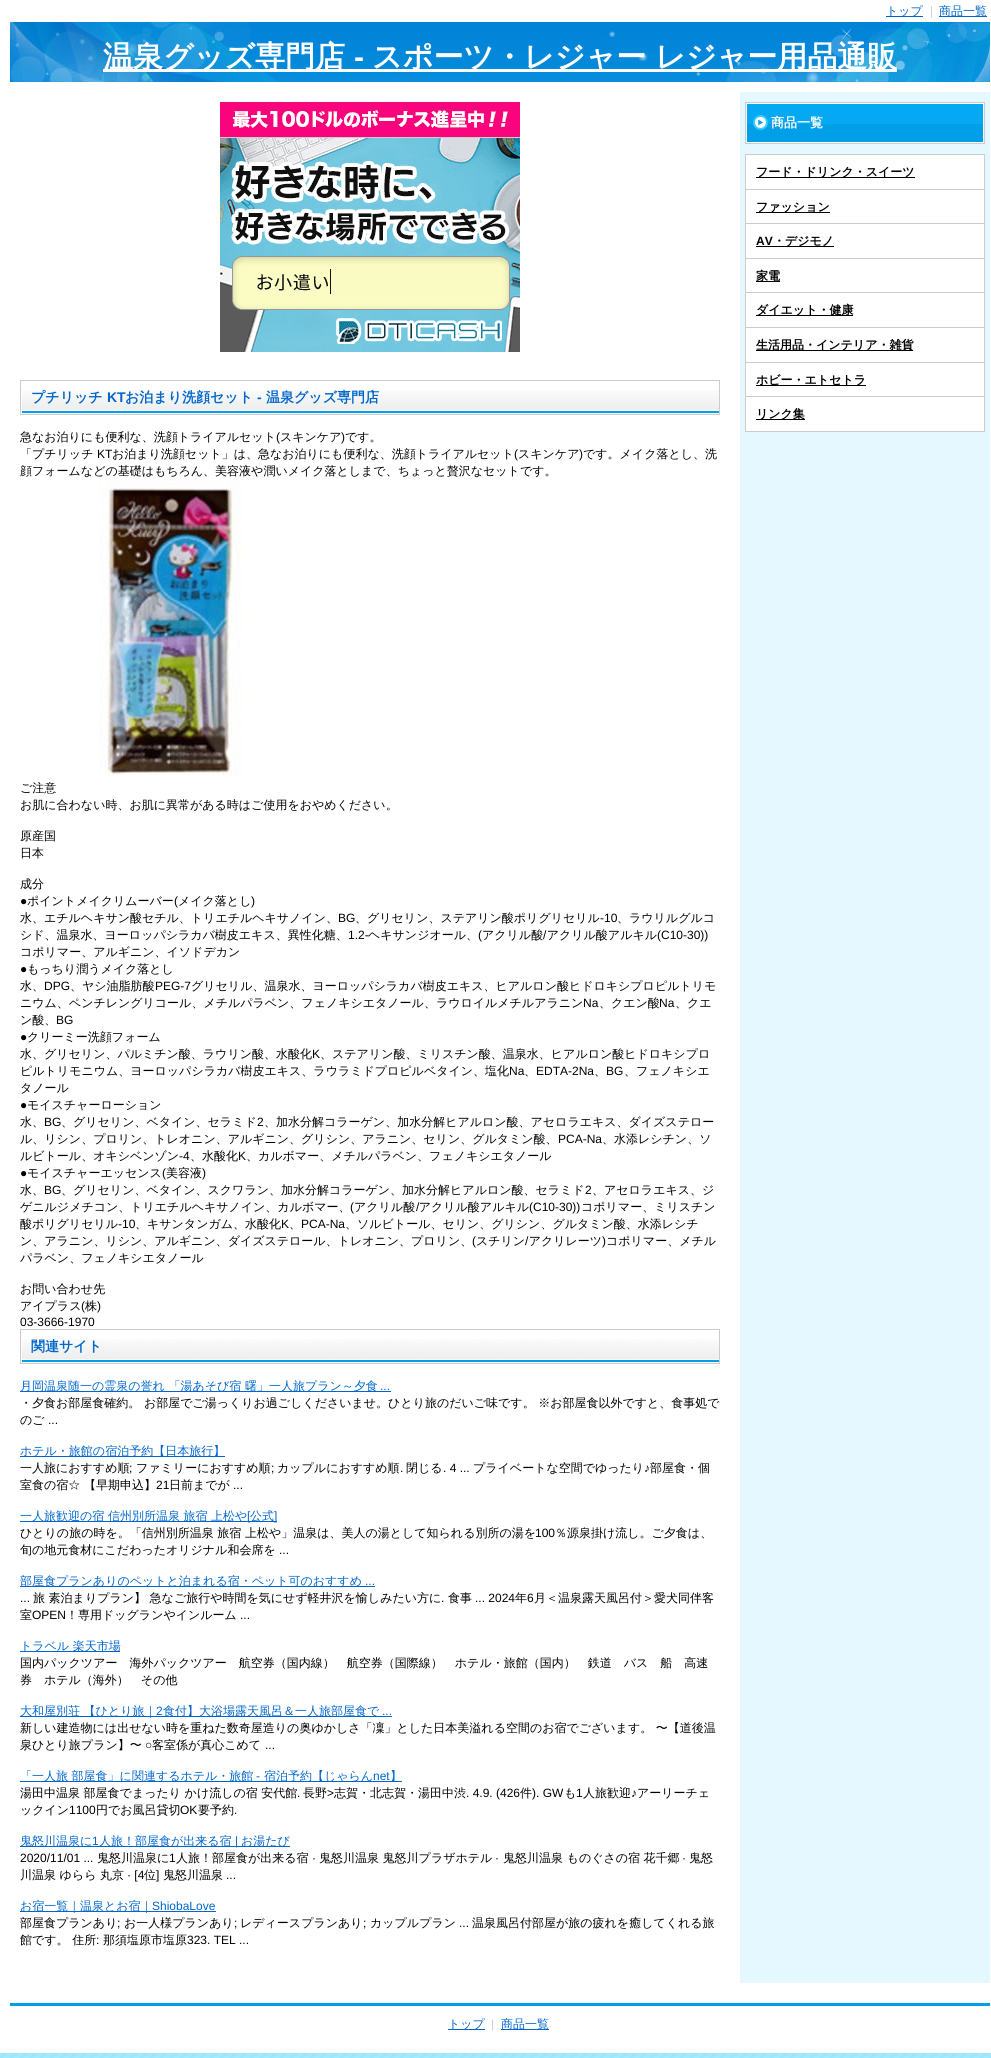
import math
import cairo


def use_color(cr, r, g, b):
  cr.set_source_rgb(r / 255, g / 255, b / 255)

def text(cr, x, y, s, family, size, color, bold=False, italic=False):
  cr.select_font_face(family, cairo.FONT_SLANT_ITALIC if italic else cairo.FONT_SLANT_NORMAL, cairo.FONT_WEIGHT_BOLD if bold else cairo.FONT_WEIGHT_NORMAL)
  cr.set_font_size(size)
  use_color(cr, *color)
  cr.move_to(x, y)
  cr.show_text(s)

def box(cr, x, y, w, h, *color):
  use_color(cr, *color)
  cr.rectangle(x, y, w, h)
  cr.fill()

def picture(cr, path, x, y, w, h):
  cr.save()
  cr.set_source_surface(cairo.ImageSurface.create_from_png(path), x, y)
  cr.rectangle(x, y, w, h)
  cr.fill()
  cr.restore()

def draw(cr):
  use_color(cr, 255, 255, 255)
  cr.paint()
  picture(cr, "img_01.png", 0, 2053, 991, 5)
  box(cr, 886, 16, 37, 1, 0, 102, 204)
  box(cr, 939, 16, 48, 1, 0, 102, 204)
  picture(cr, "img_02.png", 10, 22, 980, 60)
  box(cr, 103, 69, 794, 3, 255, 255, 255)
  box(cr, 740, 92, 250, 1891, 229, 248, 255)
  use_color(cr, 255, 255, 255)
  cr.rectangle(745.5, 102.5, 239, 41)
  cr.fill_preserve()
  use_color(cr, 204, 204, 204)
  cr.set_line_width(1)
  cr.stroke()
  picture(cr, "img_03.png", 747, 104, 236, 38)
  picture(cr, "img_04.png", 753, 115, 15, 15)
  box(cr, 745, 154, 240, 1, 204, 204, 204)
  box(cr, 984, 154, 1, 278, 204, 204, 204)
  box(cr, 745, 154, 1, 278, 204, 204, 204)
  box(cr, 746, 155, 238, 34, 255, 255, 255)
  box(cr, 746, 189, 238, 1, 204, 204, 204)
  box(cr, 756, 177, 159, 1, 0, 0, 0)
  box(cr, 746, 190, 238, 33, 255, 255, 255)
  box(cr, 746, 223, 238, 1, 204, 204, 204)
  box(cr, 756, 212, 74, 1, 0, 0, 0)
  box(cr, 746, 224, 238, 34, 255, 255, 255)
  box(cr, 746, 258, 238, 1, 204, 204, 204)
  box(cr, 756, 246, 78, 1, 0, 0, 0)
  box(cr, 746, 259, 238, 33, 255, 255, 255)
  box(cr, 746, 292, 238, 1, 204, 204, 204)
  box(cr, 756, 281, 24, 1, 0, 0, 0)
  box(cr, 746, 293, 238, 34, 255, 255, 255)
  box(cr, 746, 327, 238, 1, 204, 204, 204)
  box(cr, 756, 315, 97, 1, 0, 0, 0)
  box(cr, 746, 328, 238, 34, 255, 255, 255)
  box(cr, 746, 362, 238, 1, 204, 204, 204)
  box(cr, 756, 350, 157, 1, 0, 0, 0)
  box(cr, 746, 363, 238, 33, 255, 255, 255)
  box(cr, 746, 396, 238, 1, 204, 204, 204)
  box(cr, 756, 385, 110, 1, 0, 0, 0)
  box(cr, 746, 397, 238, 34, 255, 255, 255)
  box(cr, 746, 431, 238, 1, 204, 204, 204)
  box(cr, 756, 419, 49, 1, 0, 0, 0)
  picture(cr, "img_05.png", 220, 102, 300, 250)
  picture(cr, "img_06.png", 22, 390, 697, 23)
  cr.rectangle(20.5, 380.5, 699, 34)
  use_color(cr, 204, 204, 204)
  cr.stroke()
  picture(cr, "img_07.png", 100, 480, 144, 296)
  picture(cr, "img_06.png", 22, 1339, 697, 23)
  cr.rectangle(20.5, 1329.5, 699, 34)
  cr.stroke()
  box(cr, 20, 1391, 371, 1, 0, 102, 204)
  box(cr, 20, 1456, 205, 1, 0, 102, 204)
  box(cr, 20, 1521, 257, 1, 0, 102, 204)
  box(cr, 20, 1586, 355, 1, 0, 102, 204)
  box(cr, 20, 1651, 100, 1, 0, 102, 204)
  box(cr, 20, 1716, 372, 1, 0, 102, 204)
  box(cr, 20, 1781, 382, 1, 0, 102, 204)
  box(cr, 20, 1846, 270, 1, 0, 102, 204)
  box(cr, 20, 1911, 196, 1, 0, 102, 204)
  box(cr, 10, 2003, 980, 3, 0, 159, 232)
  box(cr, 448, 2029, 37, 1, 0, 102, 204)
  box(cr, 501, 2029, 48, 1, 0, 102, 204)
  text(cr, 886, 15, "トップ", "WenQuanYi Zen Hei Medium", 12, (0, 102, 204))
  text(cr, 930, 15, "|", "Liberation Sans", 12, (204, 204, 204))
  text(cr, 939, 15, "商品一覧", "WenQuanYi Zen Hei Medium", 12, (0, 102, 204))
  text(cr, 103, 67, "温泉グッズ専門店", "WenQuanYi Zen Hei", 30, (255, 255, 255), bold=True)
  text(cr, 354, 67, "-", "Liberation Sans", 30, (255, 255, 255), bold=True)
  text(cr, 372, 67, "スポーツ・レジャー レジャー用品通販", "WenQuanYi Zen Hei", 30, (255, 255, 255), bold=True)
  text(cr, 771, 127, "商品一覧", "WenQuanYi Zen Hei", 13, (255, 255, 255), bold=True)
  text(cr, 756, 176, "フード・ドリンク・スイーツ", "WenQuanYi Zen Hei", 12, (0, 0, 0), bold=True)
  text(cr, 756, 211, "ファッション", "WenQuanYi Zen Hei", 12, (0, 0, 0), bold=True)
  text(cr, 756, 245, "AV", "Liberation Sans", 12, (0, 0, 0), bold=True)
  text(cr, 773, 245, "・デジモノ", "WenQuanYi Zen Hei", 12, (0, 0, 0), bold=True)
  text(cr, 756, 280, "家電", "WenQuanYi Zen Hei", 12, (0, 0, 0), bold=True)
  text(cr, 756, 314, "ダイエット・健康", "WenQuanYi Zen Hei", 12, (0, 0, 0), bold=True)
  text(cr, 756, 349, "生活用品・インテリア・雑貨", "WenQuanYi Zen Hei", 12, (0, 0, 0), bold=True)
  text(cr, 756, 384, "ホビー・エトセトラ", "WenQuanYi Zen Hei", 12, (0, 0, 0), bold=True)
  text(cr, 756, 418, "リンク集", "WenQuanYi Zen Hei", 12, (0, 0, 0), bold=True)
  text(cr, 31, 402, "プチリッチ", "WenQuanYi Zen Hei", 14, (0, 102, 204), bold=True)
  text(cr, 107, 402, "KT", "Liberation Sans", 14, (0, 102, 204), bold=True)
  text(cr, 125, 402, "お泊まり洗顔セット", "WenQuanYi Zen Hei", 14, (0, 102, 204), bold=True)
  text(cr, 257, 402, "-", "Liberation Sans", 14, (0, 102, 204), bold=True)
  text(cr, 266, 402, "温泉グッズ専門店", "WenQuanYi Zen Hei", 14, (0, 102, 204), bold=True)
  text(cr, 20, 441, "急なお泊りにも便利な、洗顔トライアルセット", "WenQuanYi Zen Hei Medium", 12, (0, 0, 0))
  text(cr, 276, 441, "(", "Liberation Sans", 12, (0, 0, 0))
  text(cr, 280, 441, "スキンケア", "WenQuanYi Zen Hei Medium", 12, (0, 0, 0))
  text(cr, 341, 441, ")", "Liberation Sans", 12, (0, 0, 0))
  text(cr, 345, 441, "です。", "WenQuanYi Zen Hei Medium", 12, (0, 0, 0))
  text(cr, 20, 458, "「プチリッチ", "WenQuanYi Zen Hei Medium", 12, (0, 0, 0))
  text(cr, 97, 458, "KT", "Liberation Sans", 12, (0, 0, 0))
  text(cr, 112, 458, "お泊まり洗顔セット」は、急なお泊りにも便利な、洗顔トライアルセット", "WenQuanYi Zen Hei Medium", 12, (0, 0, 0))
  text(cr, 514, 458, "(", "Liberation Sans", 12, (0, 0, 0))
  text(cr, 518, 458, "スキンケア", "WenQuanYi Zen Hei Medium", 12, (0, 0, 0))
  text(cr, 579, 458, ")", "Liberation Sans", 12, (0, 0, 0))
  text(cr, 583, 458, "です。メイク落とし、洗", "WenQuanYi Zen Hei Medium", 12, (0, 0, 0))
  text(cr, 20, 475, "顔フォームなどの基礎はもちろん、美容液や潤いメイク落としまで、ちょっと贅沢なセットです。", "WenQuanYi Zen Hei Medium", 12, (0, 0, 0))
  text(cr, 20, 792, "ご注意", "WenQuanYi Zen Hei Medium", 12, (0, 0, 0))
  text(cr, 20, 809, "お肌に合わない時、お肌に異常がある時はご使用をおやめください。", "WenQuanYi Zen Hei Medium", 12, (0, 0, 0))
  text(cr, 20, 840, "原産国", "WenQuanYi Zen Hei Medium", 12, (0, 0, 0))
  text(cr, 20, 857, "日本", "WenQuanYi Zen Hei Medium", 12, (0, 0, 0))
  text(cr, 20, 888, "成分", "WenQuanYi Zen Hei Medium", 12, (0, 0, 0))
  text(cr, 20, 905, "●", "Liberation Sans", 12, (0, 0, 0))
  text(cr, 27, 905, "ポイントメイクリムーバー", "WenQuanYi Zen Hei Medium", 12, (0, 0, 0))
  text(cr, 174, 905, "(", "Liberation Sans", 12, (0, 0, 0))
  text(cr, 178, 905, "メイク落とし", "WenQuanYi Zen Hei Medium", 12, (0, 0, 0))
  text(cr, 251, 905, ")", "Liberation Sans", 12, (0, 0, 0))
  text(cr, 20, 922, "水、エチルヘキサン酸セチル、トリエチルヘキサノイン、", "WenQuanYi Zen Hei Medium", 12, (0, 0, 0))
  text(cr, 338, 922, "BG", "Liberation Sans", 12, (0, 0, 0))
  text(cr, 355, 922, "、グリセリン、ステアリン酸ポリグリセリル", "WenQuanYi Zen Hei Medium", 12, (0, 0, 0))
  text(cr, 600, 922, "-10", "Liberation Sans", 12, (0, 0, 0))
  text(cr, 617, 922, "、ラウリルグルコ", "WenQuanYi Zen Hei Medium", 12, (0, 0, 0))
  text(cr, 20, 939, "シド、温泉水、ヨーロッパシラカバ樹皮エキス、異性化糖、", "WenQuanYi Zen Hei Medium", 12, (0, 0, 0))
  text(cr, 348, 939, "1.2-", "Liberation Sans", 12, (0, 0, 0))
  text(cr, 368, 939, "ヘキサンジオール、", "WenQuanYi Zen Hei Medium", 12, (0, 0, 0))
  text(cr, 478, 939, "(", "Liberation Sans", 12, (0, 0, 0))
  text(cr, 482, 939, "アクリル酸 アクリル酸アルキル", "WenQuanYi Zen Hei Medium", 12, (0, 0, 0))
  text(cr, 543, 939, "/", "Liberation Sans", 12, (0, 0, 0))
  text(cr, 657, 939, "(C10-30))", "Liberation Sans", 12, (0, 0, 0))
  text(cr, 20, 956, "コポリマー、アルギニン、イソドデカン", "WenQuanYi Zen Hei Medium", 12, (0, 0, 0))
  text(cr, 20, 973, "●", "Liberation Sans", 12, (0, 0, 0))
  text(cr, 27, 973, "もっちり潤うメイク落とし", "WenQuanYi Zen Hei Medium", 12, (0, 0, 0))
  text(cr, 20, 990, "水、", "WenQuanYi Zen Hei Medium", 12, (0, 0, 0))
  text(cr, 44, 990, "DPG", "Liberation Sans", 12, (0, 0, 0))
  text(cr, 70, 990, "、ヤシ油脂肪酸", "WenQuanYi Zen Hei Medium", 12, (0, 0, 0))
  text(cr, 155, 990, "PEG-7", "Liberation Sans", 12, (0, 0, 0))
  text(cr, 191, 990, "グリセリル、温泉水、ヨーロッパシラカバ樹皮エキス、ヒアルロン酸ヒドロキシプロピルトリモ", "WenQuanYi Zen Hei Medium", 12, (0, 0, 0))
  text(cr, 20, 1007, "ニウム、ペンチレングリコール、メチルパラベン、フェノキシエタノール、ラウロイルメチルアラニン", "WenQuanYi Zen Hei Medium", 12, (0, 0, 0))
  text(cr, 583, 1007, "Na", "Liberation Sans", 12, (0, 0, 0))
  text(cr, 599, 1007, "、クエン酸", "WenQuanYi Zen Hei Medium", 12, (0, 0, 0))
  text(cr, 659, 1007, "Na", "Liberation Sans", 12, (0, 0, 0))
  text(cr, 675, 1007, "、クエ", "WenQuanYi Zen Hei Medium", 12, (0, 0, 0))
  text(cr, 20, 1024, "ン酸、", "WenQuanYi Zen Hei Medium", 12, (0, 0, 0))
  text(cr, 56, 1024, "BG", "Liberation Sans", 12, (0, 0, 0))
  text(cr, 20, 1041, "●", "Liberation Sans", 12, (0, 0, 0))
  text(cr, 27, 1041, "クリーミー洗顔フォーム", "WenQuanYi Zen Hei Medium", 12, (0, 0, 0))
  text(cr, 20, 1058, "水、グリセリン、パルミチン酸、ラウリン酸、水酸化", "WenQuanYi Zen Hei Medium", 12, (0, 0, 0))
  text(cr, 312, 1058, "K", "Liberation Sans", 12, (0, 0, 0))
  text(cr, 320, 1058, "、ステアリン酸、ミリスチン酸、温泉水、ヒアルロン酸ヒドロキシプロ", "WenQuanYi Zen Hei Medium", 12, (0, 0, 0))
  text(cr, 20, 1075, "ピルトリモニウム、ヨーロッパシラカバ樹皮エキス、ラウラミドプロピルベタイン、塩化", "WenQuanYi Zen Hei Medium", 12, (0, 0, 0))
  text(cr, 509, 1075, "Na", "Liberation Sans", 12, (0, 0, 0))
  text(cr, 524, 1075, "、", "WenQuanYi Zen Hei Medium", 12, (0, 0, 0))
  text(cr, 536, 1075, "EDTA-2Na", "Liberation Sans", 12, (0, 0, 0))
  text(cr, 594, 1075, "、", "WenQuanYi Zen Hei Medium", 12, (0, 0, 0))
  text(cr, 606, 1075, "BG", "Liberation Sans", 12, (0, 0, 0))
  text(cr, 624, 1075, "、フェノキシエ", "WenQuanYi Zen Hei Medium", 12, (0, 0, 0))
  text(cr, 20, 1092, "タノール", "WenQuanYi Zen Hei Medium", 12, (0, 0, 0))
  text(cr, 20, 1109, "●", "Liberation Sans", 12, (0, 0, 0))
  text(cr, 27, 1109, "モイスチャーローション", "WenQuanYi Zen Hei Medium", 12, (0, 0, 0))
  text(cr, 20, 1126, "水、", "WenQuanYi Zen Hei Medium", 12, (0, 0, 0))
  text(cr, 44, 1126, "BG", "Liberation Sans", 12, (0, 0, 0))
  text(cr, 61, 1126, "、グリセリン、ベタイン、セラミド", "WenQuanYi Zen Hei Medium", 12, (0, 0, 0))
  text(cr, 257, 1126, "2", "Liberation Sans", 12, (0, 0, 0))
  text(cr, 264, 1126, "、加水分解コラーゲン、加水分解ヒアルロン酸、アセロラエキス、ダイズステロー", "WenQuanYi Zen Hei Medium", 12, (0, 0, 0))
  text(cr, 20, 1143, "ル、リシン、プロリン、トレオニン、アルギニン、グリシン、アラニン、セリン、グルタミン酸、", "WenQuanYi Zen Hei Medium", 12, (0, 0, 0))
  text(cr, 558, 1143, "PCA-Na", "Liberation Sans", 12, (0, 0, 0))
  text(cr, 602, 1143, "、水添レシチン、ソ", "WenQuanYi Zen Hei Medium", 12, (0, 0, 0))
  text(cr, 20, 1160, "ルビトール、オキシベンゾン", "WenQuanYi Zen Hei Medium", 12, (0, 0, 0))
  text(cr, 179, 1160, "-4", "Liberation Sans", 12, (0, 0, 0))
  text(cr, 190, 1160, "、水酸化", "WenQuanYi Zen Hei Medium", 12, (0, 0, 0))
  text(cr, 238, 1160, "K", "Liberation Sans", 12, (0, 0, 0))
  text(cr, 246, 1160, "、カルボマー、メチルパラベン、フェノキシエタノール", "WenQuanYi Zen Hei Medium", 12, (0, 0, 0))
  text(cr, 20, 1177, "●", "Liberation Sans", 12, (0, 0, 0))
  text(cr, 27, 1177, "モイスチャーエッセンス", "WenQuanYi Zen Hei Medium", 12, (0, 0, 0))
  text(cr, 162, 1177, "(", "Liberation Sans", 12, (0, 0, 0))
  text(cr, 166, 1177, "美容液", "WenQuanYi Zen Hei Medium", 12, (0, 0, 0))
  text(cr, 202, 1177, ")", "Liberation Sans", 12, (0, 0, 0))
  text(cr, 20, 1194, "水、", "WenQuanYi Zen Hei Medium", 12, (0, 0, 0))
  text(cr, 44, 1194, "BG", "Liberation Sans", 12, (0, 0, 0))
  text(cr, 61, 1194, "、グリセリン、ベタイン、スクワラン、加水分解コラーゲン、加水分解ヒアルロン酸、セラミド", "WenQuanYi Zen Hei Medium", 12, (0, 0, 0))
  text(cr, 585, 1194, "2", "Liberation Sans", 12, (0, 0, 0))
  text(cr, 592, 1194, "、アセロラエキス、ジ", "WenQuanYi Zen Hei Medium", 12, (0, 0, 0))
  text(cr, 20, 1211, "ゲニルジメチコン、トリエチルヘキサノイン、カルボマー、", "WenQuanYi Zen Hei Medium", 12, (0, 0, 0))
  text(cr, 350, 1211, "(", "Liberation Sans", 12, (0, 0, 0))
  text(cr, 354, 1211, "アクリル酸 アクリル酸アルキル", "WenQuanYi Zen Hei Medium", 12, (0, 0, 0))
  text(cr, 581, 1211, "コポリマー、ミリスチン", "WenQuanYi Zen Hei Medium", 12, (0, 0, 0))
  text(cr, 416, 1211, "/", "Liberation Sans", 12, (0, 0, 0))
  text(cr, 529, 1211, "(C10-30))", "Liberation Sans", 12, (0, 0, 0))
  text(cr, 20, 1228, "酸ポリグリセリル", "WenQuanYi Zen Hei Medium", 12, (0, 0, 0))
  text(cr, 118, 1228, "-10", "Liberation Sans", 12, (0, 0, 0))
  text(cr, 135, 1228, "、キサンタンガム、水酸化", "WenQuanYi Zen Hei Medium", 12, (0, 0, 0))
  text(cr, 281, 1228, "K", "Liberation Sans", 12, (0, 0, 0))
  text(cr, 289, 1228, "、", "WenQuanYi Zen Hei Medium", 12, (0, 0, 0))
  text(cr, 301, 1228, "PCA-Na", "Liberation Sans", 12, (0, 0, 0))
  text(cr, 345, 1228, "、ソルビトール、セリン、グリシン、グルタミン酸、水添レシチ", "WenQuanYi Zen Hei Medium", 12, (0, 0, 0))
  text(cr, 20, 1245, "ン、アラニン、リシン、アルギニン、ダイズステロール、トレオニン、プロリン、", "WenQuanYi Zen Hei Medium", 12, (0, 0, 0))
  text(cr, 472, 1245, "(", "Liberation Sans", 12, (0, 0, 0))
  text(cr, 476, 1245, "スチリン アクリレーツ", "WenQuanYi Zen Hei Medium", 12, (0, 0, 0))
  text(cr, 606, 1245, "コポリマー、メチル", "WenQuanYi Zen Hei Medium", 12, (0, 0, 0))
  text(cr, 525, 1245, "/", "Liberation Sans", 12, (0, 0, 0))
  text(cr, 602, 1245, ")", "Liberation Sans", 12, (0, 0, 0))
  text(cr, 20, 1262, "パラベン、フェノキシエタノール", "WenQuanYi Zen Hei Medium", 12, (0, 0, 0))
  text(cr, 20, 1293, "お問い合わせ先", "WenQuanYi Zen Hei Medium", 12, (0, 0, 0))
  text(cr, 20, 1310, "アイプラス", "WenQuanYi Zen Hei Medium", 12, (0, 0, 0))
  text(cr, 81, 1310, "(", "Liberation Sans", 12, (0, 0, 0))
  text(cr, 85, 1310, "株", "WenQuanYi Zen Hei Medium", 12, (0, 0, 0))
  text(cr, 97, 1310, ")", "Liberation Sans", 12, (0, 0, 0))
  text(cr, 20, 1326, "03-3666-1970", "Liberation Sans", 12, (0, 0, 0))
  text(cr, 31, 1351, "関連サイト", "WenQuanYi Zen Hei", 14, (0, 102, 204), bold=True)
  text(cr, 20, 1390, "月岡温泉随一の霊泉の誉れ 「湯あそび宿 曙」一人旅プラン～夕食", "WenQuanYi Zen Hei Medium", 12, (0, 102, 204))
  text(cr, 380, 1390, "...", "Liberation Sans", 12, (0, 102, 204))
  text(cr, 20, 1407, "・夕食お部屋食確約。 お部屋でご湯っくりお過ごしくださいませ。ひとり旅のだいご味です。 ※お部屋食以外ですと、食事処で", "WenQuanYi Zen Hei Medium", 12, (0, 0, 0))
  text(cr, 20, 1424, "のご", "WenQuanYi Zen Hei Medium", 12, (0, 0, 0))
  text(cr, 48, 1424, "...", "Liberation Sans", 12, (0, 0, 0))
  text(cr, 20, 1455, "ホテル・旅館の宿泊予約【日本旅行】", "WenQuanYi Zen Hei Medium", 12, (0, 102, 204))
  text(cr, 20, 1472, "一人旅におすすめ順", "WenQuanYi Zen Hei Medium", 12, (0, 0, 0))
  text(cr, 129, 1472, ";", "Liberation Sans", 12, (0, 0, 0))
  text(cr, 136, 1472, "ファミリーにおすすめ順", "WenQuanYi Zen Hei Medium", 12, (0, 0, 0))
  text(cr, 271, 1472, ";", "Liberation Sans", 12, (0, 0, 0))
  text(cr, 277, 1472, "カップルにおすすめ順", "WenQuanYi Zen Hei Medium", 12, (0, 0, 0))
  text(cr, 400, 1472, ".", "Liberation Sans", 12, (0, 0, 0))
  text(cr, 406, 1472, "閉じる", "WenQuanYi Zen Hei Medium", 12, (0, 0, 0))
  text(cr, 443, 1472, ". 4 ...", "Liberation Sans", 12, (0, 0, 0))
  text(cr, 473, 1472, "プライベートな空間でゆったり", "WenQuanYi Zen Hei Medium", 12, (0, 0, 0))
  text(cr, 644, 1472, "♪", "Liberation Sans", 12, (0, 0, 0))
  text(cr, 650, 1472, "部屋食・個", "WenQuanYi Zen Hei Medium", 12, (0, 0, 0))
  text(cr, 20, 1489, "室食の宿☆ 【早期申込】", "WenQuanYi Zen Hei Medium", 12, (0, 0, 0))
  text(cr, 156, 1489, "21", "Liberation Sans", 12, (0, 0, 0))
  text(cr, 169, 1489, "日前までが", "WenQuanYi Zen Hei Medium", 12, (0, 0, 0))
  text(cr, 233, 1489, "...", "Liberation Sans", 12, (0, 0, 0))
  text(cr, 20, 1520, "一人旅歓迎の宿 信州別所温泉 旅宿 上松や", "WenQuanYi Zen Hei Medium", 12, (0, 102, 204))
  text(cr, 247, 1520, "[", "Liberation Sans", 12, (0, 102, 204))
  text(cr, 250, 1520, "公式", "WenQuanYi Zen Hei Medium", 12, (0, 102, 204))
  text(cr, 274, 1520, "]", "Liberation Sans", 12, (0, 102, 204))
  text(cr, 20, 1537, "ひとりの旅の時を。「信州別所温泉 旅宿 上松や」温泉は、美人の湯として知られる別所の湯を", "WenQuanYi Zen Hei Medium", 12, (0, 0, 0))
  text(cr, 535, 1537, "100", "Liberation Sans", 12, (0, 0, 0))
  text(cr, 555, 1537, "％源泉掛け流し。ご夕食は、", "WenQuanYi Zen Hei Medium", 12, (0, 0, 0))
  text(cr, 20, 1554, "旬の地元食材にこだわったオリジナル和会席を", "WenQuanYi Zen Hei Medium", 12, (0, 0, 0))
  text(cr, 279, 1554, "...", "Liberation Sans", 12, (0, 0, 0))
  text(cr, 20, 1585, "部屋食プランありのペットと泊まれる宿・ペット可のおすすめ", "WenQuanYi Zen Hei Medium", 12, (0, 102, 204))
  text(cr, 365, 1585, "...", "Liberation Sans", 12, (0, 102, 204))
  text(cr, 20, 1602, "...", "Liberation Sans", 12, (0, 0, 0))
  text(cr, 33, 1602, "旅 素泊まりプラン】 急なご旅行や時間を気にせず軽井沢を愉しみたい方に", "WenQuanYi Zen Hei Medium", 12, (0, 0, 0))
  text(cr, 441, 1602, ".", "Liberation Sans", 12, (0, 0, 0))
  text(cr, 448, 1602, "食事", "WenQuanYi Zen Hei Medium", 12, (0, 0, 0))
  text(cr, 475, 1602, "... 2024", "Liberation Sans", 12, (0, 0, 0))
  text(cr, 515, 1602, "年", "WenQuanYi Zen Hei Medium", 12, (0, 0, 0))
  text(cr, 527, 1602, "6", "Liberation Sans", 12, (0, 0, 0))
  text(cr, 534, 1602, "月＜温泉露天風呂付＞愛犬同伴客", "WenQuanYi Zen Hei Medium", 12, (0, 0, 0))
  text(cr, 20, 1619, "室", "WenQuanYi Zen Hei Medium", 12, (0, 0, 0))
  text(cr, 32, 1619, "OPEN", "Liberation Sans", 12, (0, 0, 0))
  text(cr, 66, 1619, "！専用ドッグランやインルーム", "WenQuanYi Zen Hei Medium", 12, (0, 0, 0))
  text(cr, 240, 1619, "...", "Liberation Sans", 12, (0, 0, 0))
  text(cr, 20, 1650, "トラベル 楽天市場", "WenQuanYi Zen Hei Medium", 12, (0, 102, 204))
  text(cr, 20, 1667, "国内パックツアー　海外パックツアー　航空券（国内線）　航空券（国際線）　ホテル・旅館（国内）　鉄道　バス　船　高速", "WenQuanYi Zen Hei Medium", 12, (0, 0, 0))
  text(cr, 20, 1684, "券　ホテル（海外）　その他", "WenQuanYi Zen Hei Medium", 12, (0, 0, 0))
  text(cr, 20, 1715, "大和屋別荘 【ひとり旅｜", "WenQuanYi Zen Hei Medium", 12, (0, 102, 204))
  text(cr, 156, 1715, "2", "Liberation Sans", 12, (0, 102, 204))
  text(cr, 163, 1715, "食付】大浴場露天風呂＆一人旅部屋食で", "WenQuanYi Zen Hei Medium", 12, (0, 102, 204))
  text(cr, 382, 1715, "...", "Liberation Sans", 12, (0, 102, 204))
  text(cr, 20, 1732, "新しい建造物には出せない時を重ねた数奇屋造りの奥ゆかしさ「凜」とした日本美溢れる空間のお宿でございます。 〜【道後温", "WenQuanYi Zen Hei Medium", 12, (0, 0, 0))
  text(cr, 20, 1749, "泉ひとり旅プラン】〜", "WenQuanYi Zen Hei Medium", 12, (0, 0, 0))
  text(cr, 145, 1749, "○", "Liberation Sans", 12, (0, 0, 0))
  text(cr, 152, 1749, "客室係が真心こめて", "WenQuanYi Zen Hei Medium", 12, (0, 0, 0))
  text(cr, 265, 1749, "...", "Liberation Sans", 12, (0, 0, 0))
  text(cr, 20, 1780, "「一人旅 部屋食」に関連するホテル・旅館", "WenQuanYi Zen Hei Medium", 12, (0, 102, 204))
  text(cr, 256, 1780, "-", "Liberation Sans", 12, (0, 102, 204))
  text(cr, 264, 1780, "宿泊予約【じゃらん", "WenQuanYi Zen Hei Medium", 12, (0, 102, 204))
  text(cr, 373, 1780, "net", "Liberation Sans", 12, (0, 102, 204))
  text(cr, 390, 1780, "】", "WenQuanYi Zen Hei Medium", 12, (0, 102, 204))
  text(cr, 20, 1797, "湯田中温泉 部屋食でまったり かけ流しの宿 安代館", "WenQuanYi Zen Hei Medium", 12, (0, 0, 0))
  text(cr, 297, 1797, ".", "Liberation Sans", 12, (0, 0, 0))
  text(cr, 303, 1797, "長野", "WenQuanYi Zen Hei Medium", 12, (0, 0, 0))
  text(cr, 327, 1797, ">", "Liberation Sans", 12, (0, 0, 0))
  text(cr, 334, 1797, "志賀・北志賀・湯田中渋", "WenQuanYi Zen Hei Medium", 12, (0, 0, 0))
  text(cr, 466, 1797, ". 4.9. (426", "Liberation Sans", 12, (0, 0, 0))
  text(cr, 520, 1797, "件", "WenQuanYi Zen Hei Medium", 12, (0, 0, 0))
  text(cr, 532, 1797, "). GW", "Liberation Sans", 12, (0, 0, 0))
  text(cr, 564, 1797, "も", "WenQuanYi Zen Hei Medium", 12, (0, 0, 0))
  text(cr, 576, 1797, "1", "Liberation Sans", 12, (0, 0, 0))
  text(cr, 583, 1797, "人旅歓迎", "WenQuanYi Zen Hei Medium", 12, (0, 0, 0))
  text(cr, 631, 1797, "♪", "Liberation Sans", 12, (0, 0, 0))
  text(cr, 637, 1797, "アーリーチェ", "WenQuanYi Zen Hei Medium", 12, (0, 0, 0))
  text(cr, 20, 1814, "ックイン", "WenQuanYi Zen Hei Medium", 12, (0, 0, 0))
  text(cr, 69, 1814, "1100", "Liberation Sans", 12, (0, 0, 0))
  text(cr, 96, 1814, "円でお風呂貸切", "WenQuanYi Zen Hei Medium", 12, (0, 0, 0))
  text(cr, 180, 1814, "OK", "Liberation Sans", 12, (0, 0, 0))
  text(cr, 198, 1814, "要予約", "WenQuanYi Zen Hei Medium", 12, (0, 0, 0))
  text(cr, 234, 1814, ".", "Liberation Sans", 12, (0, 0, 0))
  text(cr, 20, 1845, "鬼怒川温泉に", "WenQuanYi Zen Hei Medium", 12, (0, 102, 204))
  text(cr, 92, 1845, "1", "Liberation Sans", 12, (0, 102, 204))
  text(cr, 99, 1845, "人旅！部屋食が出来る宿", "WenQuanYi Zen Hei Medium", 12, (0, 102, 204))
  text(cr, 235, 1845, "|", "Liberation Sans", 12, (0, 102, 204))
  text(cr, 241, 1845, "お湯たび", "WenQuanYi Zen Hei Medium", 12, (0, 102, 204))
  text(cr, 20, 1862, "2020/11/01 ...", "Liberation Sans", 12, (0, 0, 0))
  text(cr, 97, 1862, "鬼怒川温泉に", "WenQuanYi Zen Hei Medium", 12, (0, 0, 0))
  text(cr, 169, 1862, "1", "Liberation Sans", 12, (0, 0, 0))
  text(cr, 176, 1862, "人旅！部屋食が出来る宿", "WenQuanYi Zen Hei Medium", 12, (0, 0, 0))
  text(cr, 312, 1862, "·", "Liberation Sans", 12, (0, 0, 0))
  text(cr, 319, 1862, "鬼怒川温泉 鬼怒川プラザホテル", "WenQuanYi Zen Hei Medium", 12, (0, 0, 0))
  text(cr, 495, 1862, "·", "Liberation Sans", 12, (0, 0, 0))
  text(cr, 503, 1862, "鬼怒川温泉 ものぐさの宿 花千郷", "WenQuanYi Zen Hei Medium", 12, (0, 0, 0))
  text(cr, 682, 1862, "·", "Liberation Sans", 12, (0, 0, 0))
  text(cr, 689, 1862, "鬼怒", "WenQuanYi Zen Hei Medium", 12, (0, 0, 0))
  text(cr, 20, 1879, "川温泉 ゆらら 丸京", "WenQuanYi Zen Hei Medium", 12, (0, 0, 0))
  text(cr, 127, 1879, "· [4", "Liberation Sans", 12, (0, 0, 0))
  text(cr, 144, 1879, "位", "WenQuanYi Zen Hei Medium", 12, (0, 0, 0))
  text(cr, 156, 1879, "]", "Liberation Sans", 12, (0, 0, 0))
  text(cr, 163, 1879, "鬼怒川温泉", "WenQuanYi Zen Hei Medium", 12, (0, 0, 0))
  text(cr, 226, 1879, "...", "Liberation Sans", 12, (0, 0, 0))
  text(cr, 20, 1910, "お宿一覧｜温泉とお宿｜", "WenQuanYi Zen Hei Medium", 12, (0, 102, 204))
  text(cr, 152, 1910, "ShiobaLove", "Liberation Sans", 12, (0, 102, 204))
  text(cr, 20, 1927, "部屋食プランあり", "WenQuanYi Zen Hei Medium", 12, (0, 0, 0))
  text(cr, 117, 1927, ";", "Liberation Sans", 12, (0, 0, 0))
  text(cr, 124, 1927, "お一人様プランあり", "WenQuanYi Zen Hei Medium", 12, (0, 0, 0))
  text(cr, 234, 1927, ";", "Liberation Sans", 12, (0, 0, 0))
  text(cr, 240, 1927, "レディースプランあり", "WenQuanYi Zen Hei Medium", 12, (0, 0, 0))
  text(cr, 363, 1927, ";", "Liberation Sans", 12, (0, 0, 0))
  text(cr, 370, 1927, "カップルプラン", "WenQuanYi Zen Hei Medium", 12, (0, 0, 0))
  text(cr, 459, 1927, "...", "Liberation Sans", 12, (0, 0, 0))
  text(cr, 472, 1927, "温泉風呂付部屋が旅の疲れを癒してくれる旅", "WenQuanYi Zen Hei Medium", 12, (0, 0, 0))
  text(cr, 20, 1944, "館です。 住所", "WenQuanYi Zen Hei Medium", 12, (0, 0, 0))
  text(cr, 96, 1944, ":", "Liberation Sans", 12, (0, 0, 0))
  text(cr, 103, 1944, "那須塩原市塩原", "WenQuanYi Zen Hei Medium", 12, (0, 0, 0))
  text(cr, 187, 1944, "323. TEL ...", "Liberation Sans", 12, (0, 0, 0))
  text(cr, 448, 2028, "トップ", "WenQuanYi Zen Hei Medium", 12, (0, 102, 204))
  text(cr, 491, 2028, "|", "Liberation Sans", 12, (204, 204, 204))
  text(cr, 501, 2028, "商品一覧", "WenQuanYi Zen Hei Medium", 12, (0, 102, 204))


surface = cairo.ImageSurface(cairo.FORMAT_RGB24, 991, 2058)
cr = cairo.Context(surface)
options = cairo.FontOptions()
options.set_hint_metrics(cairo.HINT_METRICS_OFF)
options.set_hint_style(cairo.HINT_STYLE_NONE)
cr.set_font_options(options)
cr.set_miter_limit(4)
draw(cr)
surface.write_to_png("out.png")
